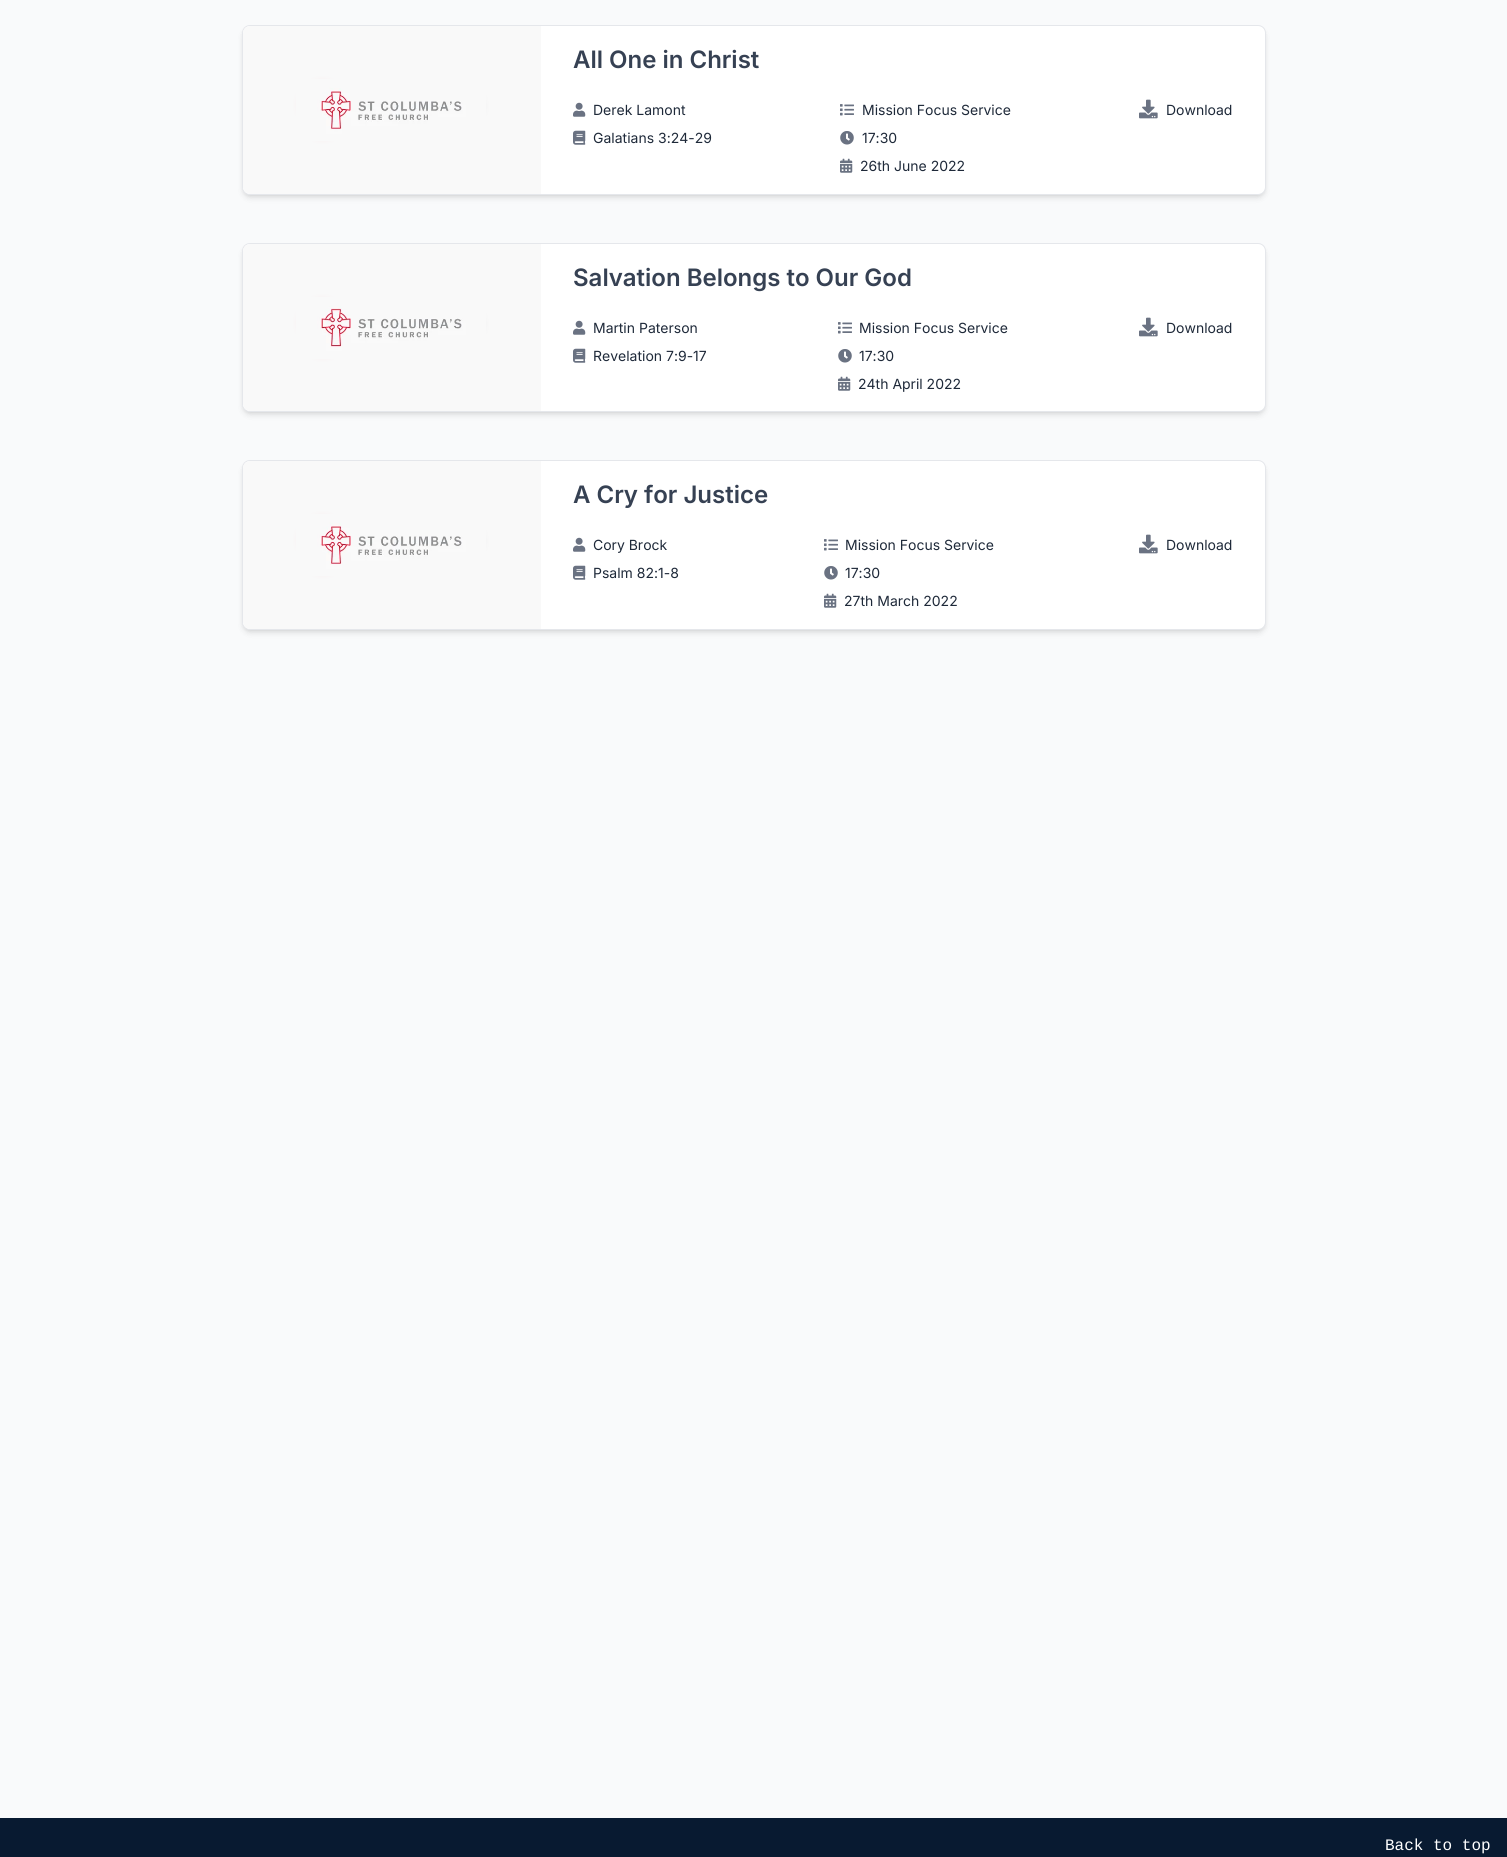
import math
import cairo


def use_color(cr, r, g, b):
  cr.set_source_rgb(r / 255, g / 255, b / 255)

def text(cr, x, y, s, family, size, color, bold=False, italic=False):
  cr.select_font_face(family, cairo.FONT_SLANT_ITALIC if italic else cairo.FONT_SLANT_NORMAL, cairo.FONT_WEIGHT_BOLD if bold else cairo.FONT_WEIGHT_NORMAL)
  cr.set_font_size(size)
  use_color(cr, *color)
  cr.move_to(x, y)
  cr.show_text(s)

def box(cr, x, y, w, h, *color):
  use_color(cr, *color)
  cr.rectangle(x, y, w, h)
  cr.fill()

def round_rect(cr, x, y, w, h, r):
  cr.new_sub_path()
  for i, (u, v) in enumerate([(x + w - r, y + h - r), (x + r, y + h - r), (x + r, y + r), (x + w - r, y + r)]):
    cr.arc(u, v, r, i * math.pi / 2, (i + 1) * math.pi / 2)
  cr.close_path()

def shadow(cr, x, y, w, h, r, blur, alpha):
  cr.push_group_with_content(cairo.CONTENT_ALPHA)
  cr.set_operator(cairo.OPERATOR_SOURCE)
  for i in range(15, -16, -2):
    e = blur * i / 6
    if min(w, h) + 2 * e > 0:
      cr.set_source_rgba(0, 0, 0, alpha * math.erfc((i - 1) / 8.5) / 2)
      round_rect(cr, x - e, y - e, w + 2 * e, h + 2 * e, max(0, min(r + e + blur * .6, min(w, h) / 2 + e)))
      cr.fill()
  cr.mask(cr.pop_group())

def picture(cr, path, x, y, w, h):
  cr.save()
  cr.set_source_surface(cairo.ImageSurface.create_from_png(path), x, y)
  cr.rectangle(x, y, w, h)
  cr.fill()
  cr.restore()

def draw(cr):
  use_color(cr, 249, 250, 251)
  cr.paint()
  use_color(cr, 0, 0, 0)
  shadow(cr, 244, 29, 1020, 166, 6, 2, 0.1)
  shadow(cr, 243, 30, 1022, 168, 7, 3, 0.1)
  use_color(cr, 255, 255, 255)
  round_rect(cr, 242.5, 25.5, 1023, 169, 7.5)
  cr.fill_preserve()
  use_color(cr, 229, 231, 235)
  cr.set_line_width(1)
  cr.stroke()
  picture(cr, "img_01.png", 243, 26, 298, 168)
  picture(cr, "img_02.png", 296, 79, 190, 62)
  picture(cr, "img_03.png", 573, 102, 13, 15)
  picture(cr, "img_04.png", 573, 130, 13, 15)
  picture(cr, "img_05.png", 840, 104, 14, 12)
  picture(cr, "img_06.png", 840, 131, 14, 14)
  picture(cr, "img_07.png", 840, 158, 13, 15)
  picture(cr, "img_08.png", 1139, 99, 19, 20)
  use_color(cr, 0, 0, 0)
  shadow(cr, 244, 247, 1020, 165, 6, 2, 0.1)
  shadow(cr, 243, 248, 1022, 167, 7, 3, 0.1)
  use_color(cr, 255, 255, 255)
  round_rect(cr, 242.5, 243.5, 1023, 168, 7.5)
  cr.fill_preserve()
  use_color(cr, 229, 231, 235)
  cr.stroke()
  picture(cr, "img_09.png", 243, 244, 298, 167)
  picture(cr, "img_10.png", 296, 297, 190, 62)
  picture(cr, "img_03.png", 573, 320, 13, 15)
  picture(cr, "img_04.png", 573, 348, 13, 15)
  picture(cr, "img_05.png", 838, 322, 14, 12)
  picture(cr, "img_06.png", 838, 349, 14, 14)
  picture(cr, "img_07.png", 838, 376, 13, 15)
  picture(cr, "img_08.png", 1139, 317, 19, 20)
  use_color(cr, 0, 0, 0)
  shadow(cr, 244, 464, 1020, 166, 6, 2, 0.1)
  shadow(cr, 243, 465, 1022, 168, 7, 3, 0.1)
  use_color(cr, 255, 255, 255)
  round_rect(cr, 242.5, 460.5, 1023, 169, 7.5)
  cr.fill_preserve()
  use_color(cr, 229, 231, 235)
  cr.stroke()
  picture(cr, "img_01.png", 243, 461, 298, 168)
  picture(cr, "img_02.png", 296, 514, 190, 62)
  picture(cr, "img_03.png", 573, 537, 13, 15)
  picture(cr, "img_04.png", 573, 565, 13, 15)
  picture(cr, "img_05.png", 824, 539, 14, 12)
  picture(cr, "img_06.png", 824, 566, 14, 14)
  picture(cr, "img_07.png", 824, 593, 13, 15)
  picture(cr, "img_08.png", 1139, 534, 19, 20)
  box(cr, 0, 1818, 1507, 39, 8, 26, 49)
  text(cr, 573, 68, "All One in Christ", "Inter SemiBold", 24, (54, 65, 83))
  text(cr, 593, 115, "Derek Lamont", "Inter", 14, (30, 41, 57))
  text(cr, 593, 143, "Galatians 3:24-29", "Inter", 14, (30, 41, 57))
  text(cr, 862, 115, "Mission Focus Service", "Inter", 14, (30, 41, 57))
  text(cr, 862, 143, "17:30", "Inter", 14, (30, 41, 57))
  text(cr, 860, 171, "26th June 2022", "Inter", 14, (30, 41, 57))
  text(cr, 1166, 115, "Download", "Inter", 14, (30, 41, 57))
  text(cr, 573, 286, "Salvation Belongs to Our God", "Inter SemiBold", 24, (54, 65, 83))
  text(cr, 593, 333, "Martin Paterson", "Inter", 14, (30, 41, 57))
  text(cr, 593, 361, "Revelation 7:9-17", "Inter", 14, (30, 41, 57))
  text(cr, 859, 333, "Mission Focus Service", "Inter", 14, (30, 41, 57))
  text(cr, 859, 361, "17:30", "Inter", 14, (30, 41, 57))
  text(cr, 858, 389, "24th April 2022", "Inter", 14, (30, 41, 57))
  text(cr, 1166, 333, "Download", "Inter", 14, (30, 41, 57))
  text(cr, 573, 503, "A Cry for Justice", "Inter SemiBold", 24, (54, 65, 83))
  text(cr, 593, 550, "Cory Brock", "Inter", 14, (30, 41, 57))
  text(cr, 593, 578, "Psalm 82:1-8", "Inter", 14, (30, 41, 57))
  text(cr, 845, 550, "Mission Focus Service", "Inter", 14, (30, 41, 57))
  text(cr, 845, 578, "17:30", "Inter", 14, (30, 41, 57))
  text(cr, 844, 606, "27th March 2022", "Inter", 14, (30, 41, 57))
  text(cr, 1166, 550, "Download", "Inter", 14, (30, 41, 57))
  text(cr, 1385, 1850, "Back to top", "Liberation Mono", 16, (255, 255, 255))


surface = cairo.ImageSurface(cairo.FORMAT_RGB24, 1507, 1857)
cr = cairo.Context(surface)
options = cairo.FontOptions()
options.set_hint_metrics(cairo.HINT_METRICS_OFF)
options.set_hint_style(cairo.HINT_STYLE_NONE)
cr.set_font_options(options)
cr.set_miter_limit(4)
draw(cr)
surface.write_to_png("out.png")
